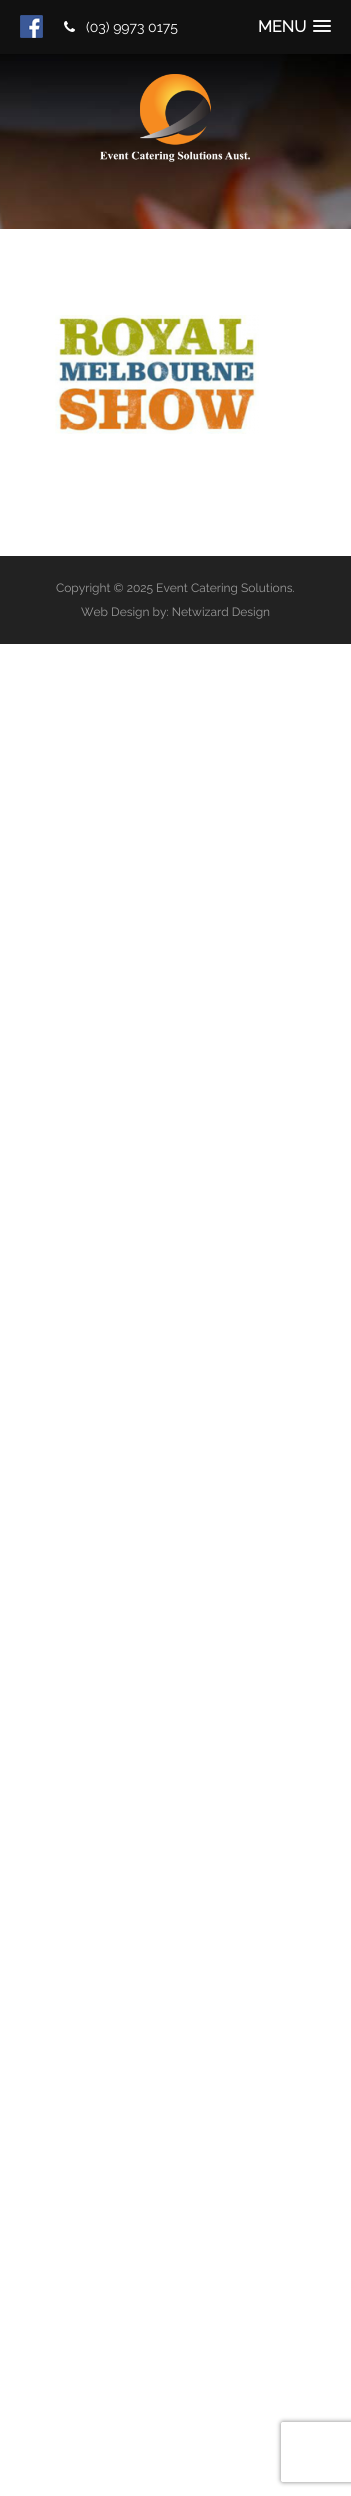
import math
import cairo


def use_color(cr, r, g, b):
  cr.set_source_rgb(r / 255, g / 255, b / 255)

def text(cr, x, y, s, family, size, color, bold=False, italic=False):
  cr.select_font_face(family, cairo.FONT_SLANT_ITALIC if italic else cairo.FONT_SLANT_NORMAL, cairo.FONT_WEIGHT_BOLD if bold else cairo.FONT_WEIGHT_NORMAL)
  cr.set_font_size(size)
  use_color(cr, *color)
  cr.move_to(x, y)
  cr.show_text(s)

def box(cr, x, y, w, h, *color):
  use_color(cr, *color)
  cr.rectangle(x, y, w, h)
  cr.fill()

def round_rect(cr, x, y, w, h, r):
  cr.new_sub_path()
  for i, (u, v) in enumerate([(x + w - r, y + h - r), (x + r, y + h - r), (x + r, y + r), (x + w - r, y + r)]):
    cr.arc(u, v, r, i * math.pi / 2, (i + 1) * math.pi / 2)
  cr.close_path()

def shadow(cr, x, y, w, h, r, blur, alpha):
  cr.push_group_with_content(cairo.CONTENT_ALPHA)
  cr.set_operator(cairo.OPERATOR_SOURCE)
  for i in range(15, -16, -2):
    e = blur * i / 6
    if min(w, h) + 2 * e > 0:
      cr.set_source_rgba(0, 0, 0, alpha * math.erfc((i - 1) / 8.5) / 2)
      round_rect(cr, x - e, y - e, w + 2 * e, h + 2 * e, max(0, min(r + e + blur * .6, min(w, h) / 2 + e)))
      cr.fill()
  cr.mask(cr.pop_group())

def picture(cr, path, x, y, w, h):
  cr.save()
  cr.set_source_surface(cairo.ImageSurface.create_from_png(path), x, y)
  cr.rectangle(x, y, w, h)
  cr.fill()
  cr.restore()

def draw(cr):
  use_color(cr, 255, 255, 255)
  cr.paint()
  box(cr, 0, 0, 351, 54, 17, 17, 17)
  picture(cr, "img_01.png", 20, 15, 23, 23)
  picture(cr, "img_02.png", 64, 21, 11, 11)
  use_color(cr, 13, 13, 13)
  cr.new_path()
  cr.move_to(313, 21.5)
  cr.curve_to(312, 23.5, 316.5, 23, 316.5, 23)
  cr.line_to(327.5, 23)
  cr.curve_to(327.5, 23, 332, 23.5, 331, 21.5)
  cr.curve_to(330, 22.5, 323.5, 22, 322, 22)
  cr.curve_to(320.5, 22, 314, 22.5, 313, 21.5)
  cr.close_path()
  cr.fill()
  use_color(cr, 245, 245, 245)
  round_rect(cr, 313, 20, 18, 2, 1)
  cr.fill()
  use_color(cr, 13, 13, 13)
  cr.new_path()
  cr.move_to(313, 26.5)
  cr.curve_to(312, 28.5, 316.5, 28, 316.5, 28)
  cr.line_to(327.5, 28)
  cr.curve_to(327.5, 28, 332, 28.5, 331, 26.5)
  cr.curve_to(330, 27.5, 323.5, 27, 322, 27)
  cr.curve_to(320.5, 27, 314, 27.5, 313, 26.5)
  cr.close_path()
  cr.fill()
  use_color(cr, 245, 245, 245)
  round_rect(cr, 313, 25, 18, 2, 1)
  cr.fill()
  use_color(cr, 13, 13, 13)
  cr.new_path()
  cr.move_to(313, 31.5)
  cr.curve_to(312, 33.5, 316.5, 33, 316.5, 33)
  cr.line_to(327.5, 33)
  cr.curve_to(327.5, 33, 332, 33.5, 331, 31.5)
  cr.curve_to(330, 32.5, 323.5, 32, 322, 32)
  cr.curve_to(320.5, 32, 314, 32.5, 313, 31.5)
  cr.close_path()
  cr.fill()
  use_color(cr, 245, 245, 245)
  round_rect(cr, 313, 30, 18, 2, 1)
  cr.fill()
  picture(cr, "img_03.png", 0, 54, 351, 175)
  picture(cr, "img_04.png", 100, 74, 150, 88)
  picture(cr, "img_05.png", 55, 315, 204, 119)
  box(cr, 0, 556, 351, 88, 34, 34, 34)
  cr.save()
  cr.set_fill_rule(cairo.FILL_RULE_EVEN_ODD)
  cr.new_path()
  cr.move_to(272, 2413)
  cr.line_to(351, 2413)
  cr.line_to(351, 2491)
  cr.line_to(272, 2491)
  cr.close_path()
  cr.move_to(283, 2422)
  cr.line_to(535, 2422)
  cr.curve_to(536, 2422, 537, 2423, 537, 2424)
  cr.line_to(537, 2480)
  cr.curve_to(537, 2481, 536, 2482, 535, 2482)
  cr.line_to(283, 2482)
  cr.curve_to(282, 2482, 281, 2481, 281, 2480)
  cr.line_to(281, 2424)
  cr.curve_to(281, 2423, 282, 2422, 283, 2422)
  cr.close_path()
  cr.clip()
  use_color(cr, 128, 128, 128)
  shadow(cr, 281, 2422, 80, 60, 2, 2.5, 1)
  cr.restore()
  text(cr, 86, 32, "(03) 9973 0175", "Raleway Thin", 14, (255, 255, 255))
  text(cr, 258, 32, "MENU", "Raleway", 16, (255, 255, 255), bold=True)
  text(cr, 56, 592, "Copyright © 2025 Event Catering Solutions.", "Raleway Thin", 12, (153, 153, 153))
  text(cr, 81, 616, "Web Design by: Netwizard Design", "Raleway Thin", 12, (153, 153, 153))


surface = cairo.ImageSurface(cairo.FORMAT_RGB24, 351, 2496)
cr = cairo.Context(surface)
options = cairo.FontOptions()
options.set_hint_metrics(cairo.HINT_METRICS_OFF)
options.set_hint_style(cairo.HINT_STYLE_NONE)
cr.set_font_options(options)
cr.set_miter_limit(4)
draw(cr)
surface.write_to_png("out.png")
